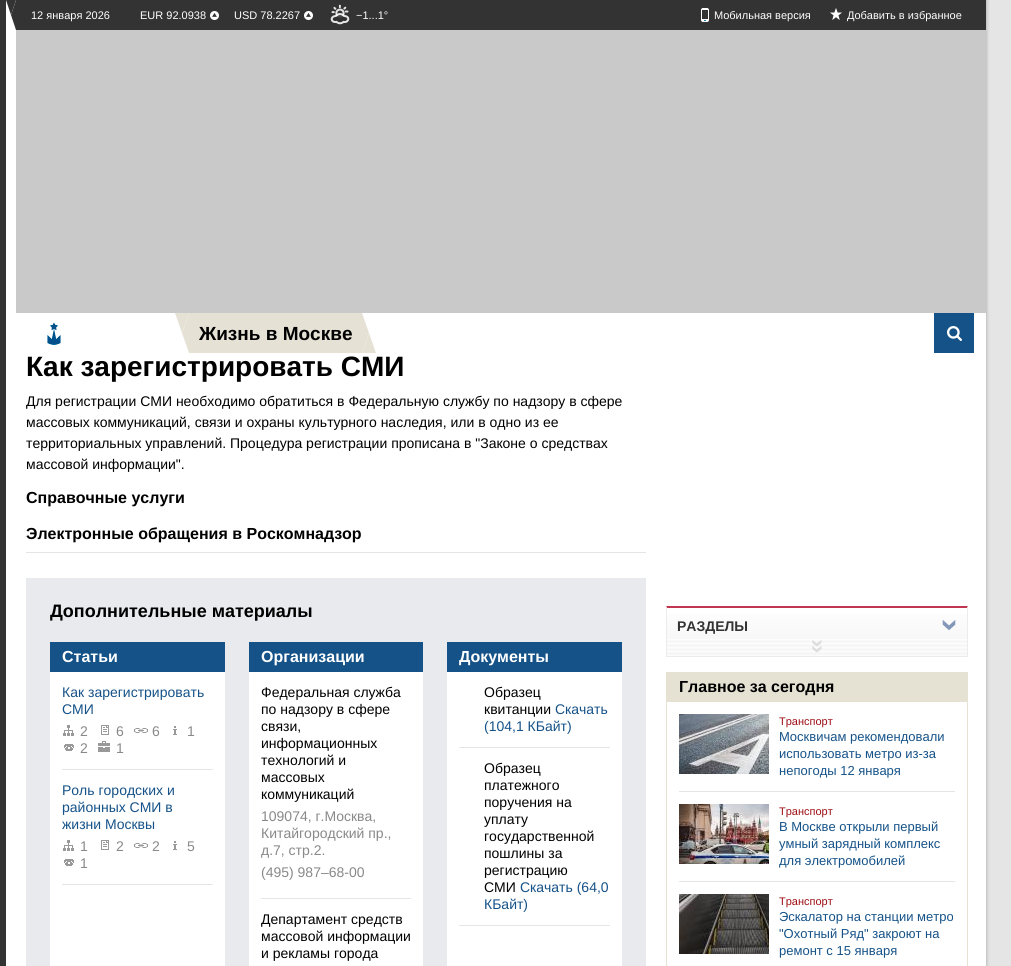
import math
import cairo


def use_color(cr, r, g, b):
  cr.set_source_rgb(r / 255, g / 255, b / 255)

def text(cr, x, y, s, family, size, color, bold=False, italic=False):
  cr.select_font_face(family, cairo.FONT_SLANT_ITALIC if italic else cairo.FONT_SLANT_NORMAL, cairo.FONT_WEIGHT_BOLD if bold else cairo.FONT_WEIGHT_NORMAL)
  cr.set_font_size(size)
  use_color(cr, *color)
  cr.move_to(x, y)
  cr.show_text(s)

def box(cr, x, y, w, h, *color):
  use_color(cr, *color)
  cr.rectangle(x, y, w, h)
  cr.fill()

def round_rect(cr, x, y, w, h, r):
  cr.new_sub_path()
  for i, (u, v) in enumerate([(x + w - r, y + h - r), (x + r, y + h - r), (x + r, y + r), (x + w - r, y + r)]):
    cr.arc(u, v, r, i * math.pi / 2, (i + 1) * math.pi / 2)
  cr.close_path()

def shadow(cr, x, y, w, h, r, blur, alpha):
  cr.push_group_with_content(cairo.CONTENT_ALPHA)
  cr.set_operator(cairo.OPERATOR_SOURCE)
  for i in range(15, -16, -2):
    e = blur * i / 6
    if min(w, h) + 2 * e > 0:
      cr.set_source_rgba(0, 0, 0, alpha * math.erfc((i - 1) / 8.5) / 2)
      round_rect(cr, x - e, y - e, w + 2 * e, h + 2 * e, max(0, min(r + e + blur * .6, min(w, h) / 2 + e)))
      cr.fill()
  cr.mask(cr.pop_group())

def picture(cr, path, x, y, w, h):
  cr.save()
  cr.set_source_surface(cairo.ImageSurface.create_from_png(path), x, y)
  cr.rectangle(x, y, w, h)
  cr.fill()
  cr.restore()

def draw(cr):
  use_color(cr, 229, 229, 229)
  cr.paint()
  use_color(cr, 0, 0, 0)
  shadow(cr, 0, 0, 986, 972, 0, 2, 0.3)
  box(cr, 6, 0, 980, 966, 255, 255, 255)
  box(cr, 0, 0, 6, 966, 51, 51, 51)
  box(cr, 16, 0, 970, 30, 51, 51, 51)
  cr.new_path()
  cr.move_to(6, 0)
  cr.line_to(16, 0)
  cr.line_to(11, 15)
  cr.close_path()
  cr.fill()
  cr.new_path()
  cr.move_to(16, 0)
  cr.line_to(16, 30)
  cr.line_to(11, 15)
  cr.close_path()
  cr.fill()
  picture(cr, "img_01.png", 210, 11, 9, 9)
  picture(cr, "img_01.png", 304, 11, 9, 9)
  picture(cr, "img_02.png", 330, 4, 20, 21)
  picture(cr, "img_03.png", 701, 8, 8, 14)
  picture(cr, "img_04.png", 830, 8, 12, 12)
  box(cr, 16, 30, 970, 283, 201, 201, 201)
  picture(cr, "img_05.png", 47, 322, 14, 23)
  box(cr, 189, 313, 173, 40, 229, 225, 213)
  cr.new_path()
  cr.move_to(175, 313)
  cr.line_to(189, 313)
  cr.line_to(182, 333)
  cr.close_path()
  cr.fill()
  cr.new_path()
  cr.move_to(189, 313)
  cr.line_to(189, 353)
  cr.line_to(182, 333)
  cr.close_path()
  cr.fill()
  cr.new_path()
  cr.move_to(376, 353)
  cr.line_to(362, 353)
  cr.line_to(369, 333)
  cr.close_path()
  cr.fill()
  cr.new_path()
  cr.move_to(362, 353)
  cr.line_to(362, 313)
  cr.line_to(369, 333)
  cr.close_path()
  cr.fill()
  box(cr, 934, 313, 40, 40, 21, 82, 136)
  picture(cr, "img_06.png", 947, 326, 15, 15)
  box(cr, 26, 552, 620, 1, 229, 229, 229)
  box(cr, 26, 578, 620, 388, 233, 234, 237)
  box(cr, 50, 672, 175, 294, 255, 255, 255)
  box(cr, 50, 642, 175, 30, 21, 82, 136)
  box(cr, 62, 769, 151, 1, 229, 229, 229)
  picture(cr, "img_07.png", 63, 725, 11, 11)
  picture(cr, "img_08.png", 101, 725, 8, 10)
  picture(cr, "img_09.png", 134, 728, 14, 5)
  picture(cr, "img_10.png", 173, 726, 4, 9)
  picture(cr, "img_11.png", 64, 744, 10, 7)
  picture(cr, "img_12.png", 98, 741, 12, 11)
  box(cr, 62, 884, 151, 1, 229, 229, 229)
  picture(cr, "img_07.png", 63, 840, 11, 11)
  picture(cr, "img_08.png", 101, 840, 8, 10)
  picture(cr, "img_09.png", 134, 843, 14, 5)
  picture(cr, "img_10.png", 173, 841, 4, 9)
  picture(cr, "img_11.png", 64, 859, 10, 7)
  box(cr, 249, 672, 174, 294, 255, 255, 255)
  box(cr, 249, 642, 174, 30, 21, 82, 136)
  box(cr, 261, 898, 150, 1, 229, 229, 229)
  box(cr, 447, 672, 175, 294, 255, 255, 255)
  box(cr, 447, 642, 175, 30, 21, 82, 136)
  box(cr, 459, 747, 151, 1, 229, 229, 229)
  box(cr, 459, 925, 151, 1, 229, 229, 229)
  gradient = cairo.LinearGradient(667, 608, 667, 656)
  gradient.add_color_stop_rgba(0, 0.992, 0.992, 0.992, 1)
  gradient.add_color_stop_rgba(0.07, 0.992, 0.992, 0.992, 1)
  gradient.add_color_stop_rgba(0.9, 0.961, 0.961, 0.961, 1)
  cr.set_source(gradient)
  cr.rectangle(667, 614, 300, 42)
  cr.fill()
  use_color(cr, 193, 55, 81)
  cr.new_path()
  cr.move_to(666, 606)
  cr.line_to(968, 606)
  cr.line_to(967, 608)
  cr.line_to(667, 608)
  cr.close_path()
  cr.fill()
  use_color(cr, 236, 236, 236)
  cr.new_path()
  cr.move_to(968, 606)
  cr.line_to(968, 657)
  cr.line_to(967, 656)
  cr.line_to(967, 608)
  cr.close_path()
  cr.fill()
  box(cr, 666, 656, 302, 1, 236, 236, 236)
  cr.new_path()
  cr.move_to(666, 657)
  cr.line_to(666, 606)
  cr.line_to(667, 608)
  cr.line_to(667, 656)
  cr.close_path()
  cr.fill()
  picture(cr, "img_13.png", 942, 620, 14, 10)
  picture(cr, "img_14.png", 667, 639, 300, 17)
  box(cr, 967, 672, 1, 294, 229, 226, 212)
  box(cr, 666, 672, 1, 294, 229, 226, 212)
  box(cr, 667, 672, 300, 30, 229, 226, 212)
  box(cr, 679, 791, 276, 1, 229, 229, 229)
  picture(cr, "img_15.png", 679, 714, 90, 60)
  box(cr, 679, 881, 276, 1, 229, 229, 229)
  picture(cr, "img_16.png", 679, 804, 90, 60)
  picture(cr, "img_17.png", 679, 894, 90, 60)
  text(cr, 31, 19, "12 января 2026", "Liberation Sans", 11, (255, 255, 255))
  text(cr, 140, 19, "EUR 92.0938", "Liberation Sans", 11, (255, 255, 255))
  text(cr, 234, 19, "USD 78.2267", "Liberation Sans", 11, (255, 255, 255))
  text(cr, 356, 19, "−1...1°", "Liberation Sans", 11, (255, 255, 255))
  text(cr, 714, 19, "Мобильная версия", "Liberation Sans", 11, (255, 255, 255))
  text(cr, 847, 19, "Добавить в избранное", "Liberation Sans", 11, (255, 255, 255))
  text(cr, 199, 340, "Жизнь в Москве", "Liberation Sans", 19, (0, 0, 0), bold=True)
  text(cr, 26, 376, "Как зарегистрировать СМИ", "Liberation Sans", 28, (0, 0, 0), bold=True)
  text(cr, 26, 406, "Для регистрации СМИ необходимо обратиться в Федеральную службу по надзору в сфере", "Liberation Sans", 14, (0, 0, 0))
  text(cr, 26, 427, "массовых коммуникаций, связи и охраны культурного наследия, или в одно из ее", "Liberation Sans", 14, (0, 0, 0))
  text(cr, 26, 448, "территориальных управлений. Процедура регистрации прописана в \"Законе о средствах", "Liberation Sans", 14, (0, 0, 0))
  text(cr, 26, 469, "массовой информации\".", "Liberation Sans", 14, (0, 0, 0))
  text(cr, 26, 503, "Справочные услуги", "Liberation Sans", 16, (0, 0, 0), bold=True)
  text(cr, 26, 539, "Электронные обращения в Роскомнадзор", "Liberation Sans", 16, (0, 0, 0), bold=True)
  text(cr, 50, 617, "Дополнительные материалы", "Liberation Sans", 18, (0, 0, 0), bold=True)
  text(cr, 62, 662, "Статьи", "Liberation Sans", 16, (255, 255, 255), bold=True)
  text(cr, 62, 697, "Как зарегистрировать", "Liberation Sans", 14, (21, 82, 136))
  text(cr, 62, 714, "СМИ", "Liberation Sans", 14, (21, 82, 136))
  text(cr, 80, 736, "2", "Liberation Sans", 14, (137, 137, 137))
  text(cr, 116, 736, "6", "Liberation Sans", 14, (137, 137, 137))
  text(cr, 152, 736, "6", "Liberation Sans", 14, (137, 137, 137))
  text(cr, 187, 736, "1", "Liberation Sans", 14, (137, 137, 137))
  text(cr, 80, 753, "2", "Liberation Sans", 14, (137, 137, 137))
  text(cr, 116, 753, "1", "Liberation Sans", 14, (137, 137, 137))
  text(cr, 62, 795, "Роль городских и", "Liberation Sans", 14, (21, 82, 136))
  text(cr, 62, 812, "районных СМИ в", "Liberation Sans", 14, (21, 82, 136))
  text(cr, 62, 829, "жизни Москвы", "Liberation Sans", 14, (21, 82, 136))
  text(cr, 80, 851, "1", "Liberation Sans", 14, (137, 137, 137))
  text(cr, 116, 851, "2", "Liberation Sans", 14, (137, 137, 137))
  text(cr, 152, 851, "2", "Liberation Sans", 14, (137, 137, 137))
  text(cr, 187, 851, "5", "Liberation Sans", 14, (137, 137, 137))
  text(cr, 80, 868, "1", "Liberation Sans", 14, (137, 137, 137))
  text(cr, 261, 662, "Организации", "Liberation Sans", 16, (255, 255, 255), bold=True)
  text(cr, 261, 697, "Федеральная служба", "Liberation Sans", 14, (0, 0, 0))
  text(cr, 261, 714, "по надзору в сфере", "Liberation Sans", 14, (0, 0, 0))
  text(cr, 261, 731, "связи,", "Liberation Sans", 14, (0, 0, 0))
  text(cr, 261, 748, "информационных", "Liberation Sans", 14, (0, 0, 0))
  text(cr, 261, 765, "технологий и", "Liberation Sans", 14, (0, 0, 0))
  text(cr, 261, 782, "массовых", "Liberation Sans", 14, (0, 0, 0))
  text(cr, 261, 799, "коммуникаций", "Liberation Sans", 14, (0, 0, 0))
  text(cr, 261, 821, "109074, г.Москва,", "Liberation Sans", 14, (137, 137, 137))
  text(cr, 261, 838, "Китайгородский пр.,", "Liberation Sans", 14, (137, 137, 137))
  text(cr, 261, 855, "д.7, стр.2.", "Liberation Sans", 14, (137, 137, 137))
  text(cr, 261, 877, "(495) 987–68-00", "Liberation Sans", 14, (137, 137, 137))
  text(cr, 261, 924, "Департамент средств", "Liberation Sans", 14, (0, 0, 0))
  text(cr, 261, 941, "массовой информации", "Liberation Sans", 14, (0, 0, 0))
  text(cr, 261, 958, "и рекламы города", "Liberation Sans", 14, (0, 0, 0))
  text(cr, 459, 662, "Документы", "Liberation Sans", 16, (255, 255, 255), bold=True)
  text(cr, 484, 697, "Образец", "Liberation Sans", 14, (0, 0, 0))
  text(cr, 484, 714, "квитанции", "Liberation Sans", 14, (0, 0, 0))
  text(cr, 555, 714, "Скачать", "Liberation Sans", 14, (21, 82, 136))
  text(cr, 484, 731, "(104,1 КБайт)", "Liberation Sans", 14, (21, 82, 136))
  text(cr, 484, 773, "Образец", "Liberation Sans", 14, (0, 0, 0))
  text(cr, 484, 790, "платежного", "Liberation Sans", 14, (0, 0, 0))
  text(cr, 484, 807, "поручения на", "Liberation Sans", 14, (0, 0, 0))
  text(cr, 484, 824, "уплату", "Liberation Sans", 14, (0, 0, 0))
  text(cr, 484, 841, "государственной", "Liberation Sans", 14, (0, 0, 0))
  text(cr, 484, 858, "пошлины за", "Liberation Sans", 14, (0, 0, 0))
  text(cr, 484, 875, "регистрацию", "Liberation Sans", 14, (0, 0, 0))
  text(cr, 484, 892, "СМИ", "Liberation Sans", 14, (0, 0, 0))
  text(cr, 520, 892, "Скачать (64,0", "Liberation Sans", 14, (21, 82, 136))
  text(cr, 484, 909, "КБайт)", "Liberation Sans", 14, (21, 82, 136))
  text(cr, 677, 631, "РАЗДЕЛЫ", "Liberation Sans", 14, (51, 51, 51), bold=True)
  text(cr, 679, 692, "Главное за сегодня", "Liberation Sans", 16, (0, 0, 0), bold=True)
  text(cr, 779, 725, "Транспорт", "Liberation Sans", 11, (158, 13, 20))
  text(cr, 779, 741, "Москвичам рекомендовали", "Liberation Sans", 13, (21, 82, 136))
  text(cr, 779, 758, "использовать метро из-за", "Liberation Sans", 13, (21, 82, 136))
  text(cr, 779, 775, "непогоды 12 января", "Liberation Sans", 13, (21, 82, 136))
  text(cr, 779, 815, "Транспорт", "Liberation Sans", 11, (158, 13, 20))
  text(cr, 779, 831, "В Москве открыли первый", "Liberation Sans", 13, (21, 82, 136))
  text(cr, 779, 848, "умный зарядный комплекс", "Liberation Sans", 13, (21, 82, 136))
  text(cr, 779, 865, "для электромобилей", "Liberation Sans", 13, (21, 82, 136))
  text(cr, 779, 905, "Транспорт", "Liberation Sans", 11, (158, 13, 20))
  text(cr, 779, 921, "Эскалатор на станции метро", "Liberation Sans", 13, (21, 82, 136))
  text(cr, 779, 938, "\"Охотный Ряд\" закроют на", "Liberation Sans", 13, (21, 82, 136))
  text(cr, 779, 955, "ремонт с 15 января", "Liberation Sans", 13, (21, 82, 136))


surface = cairo.ImageSurface(cairo.FORMAT_RGB24, 1011, 966)
cr = cairo.Context(surface)
options = cairo.FontOptions()
options.set_hint_metrics(cairo.HINT_METRICS_OFF)
options.set_hint_style(cairo.HINT_STYLE_NONE)
cr.set_font_options(options)
cr.set_miter_limit(4)
draw(cr)
surface.write_to_png("out.png")
